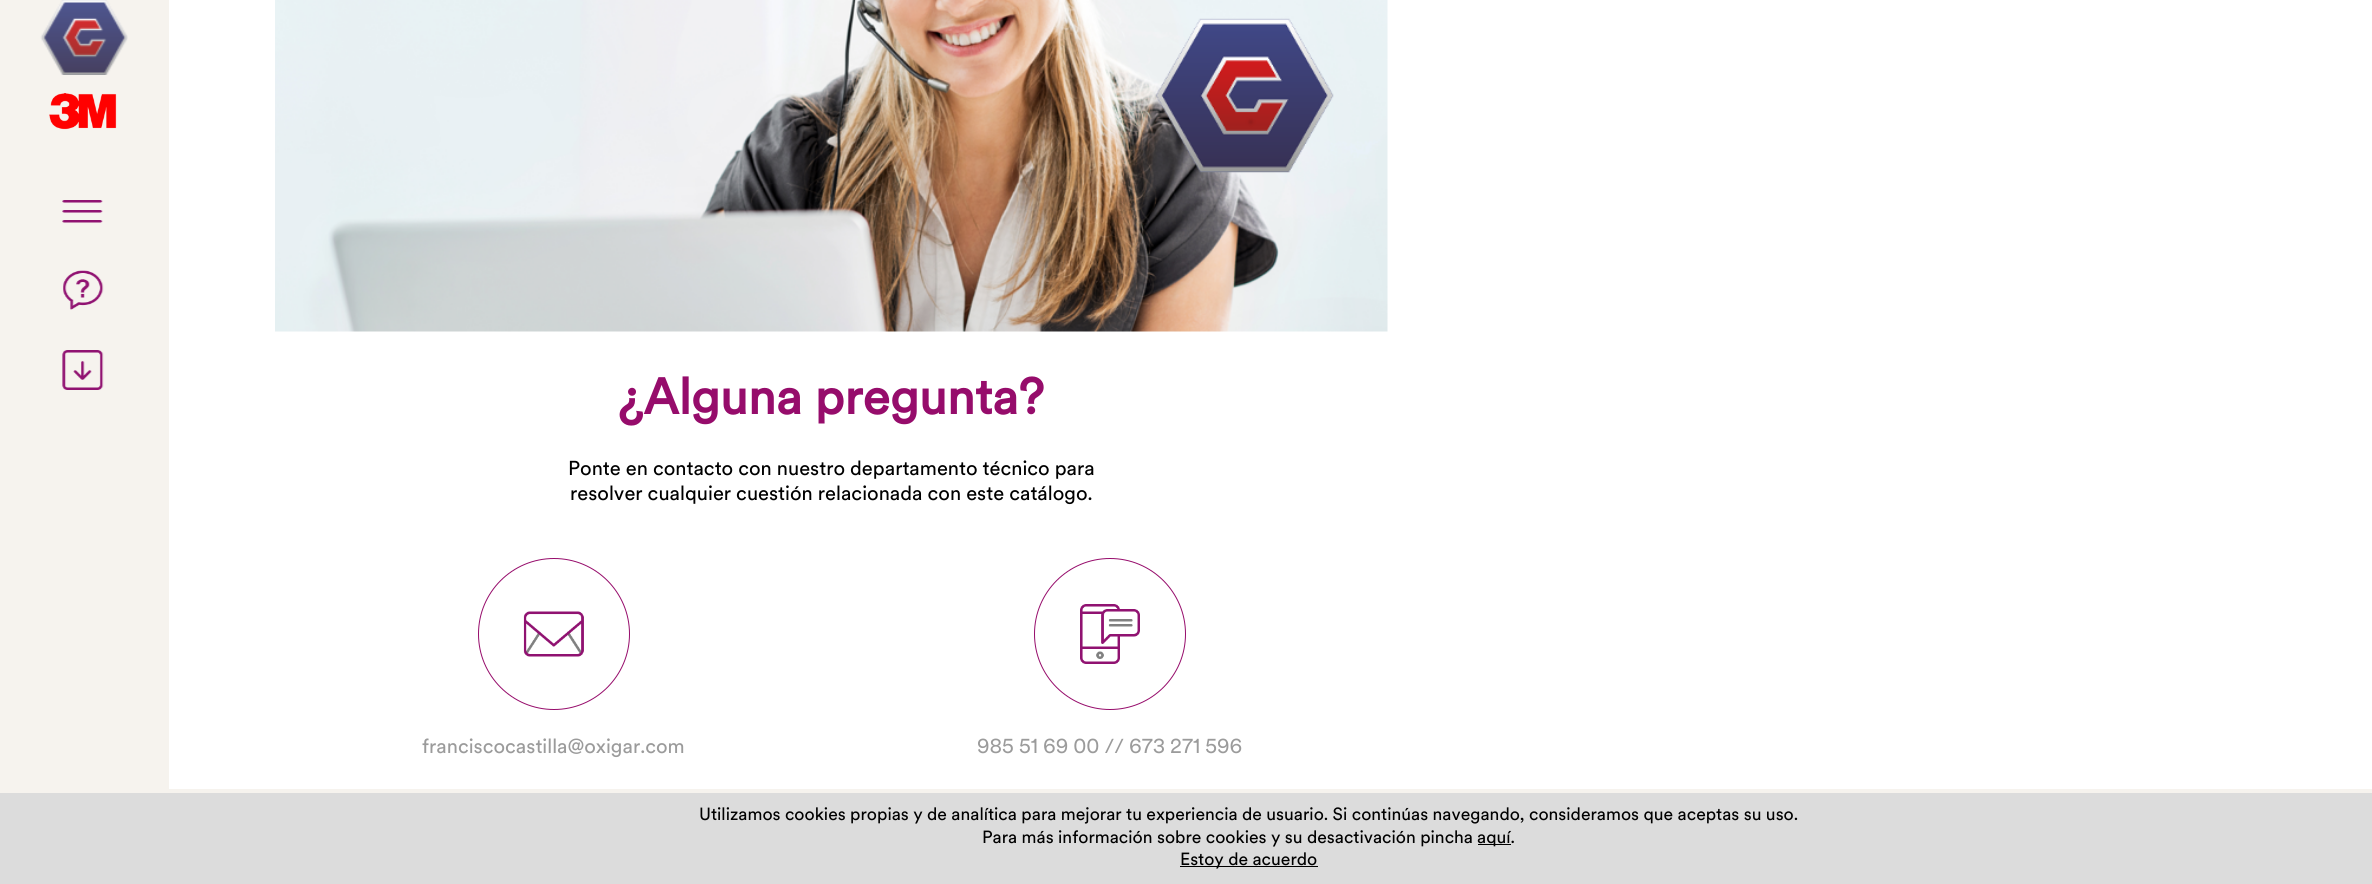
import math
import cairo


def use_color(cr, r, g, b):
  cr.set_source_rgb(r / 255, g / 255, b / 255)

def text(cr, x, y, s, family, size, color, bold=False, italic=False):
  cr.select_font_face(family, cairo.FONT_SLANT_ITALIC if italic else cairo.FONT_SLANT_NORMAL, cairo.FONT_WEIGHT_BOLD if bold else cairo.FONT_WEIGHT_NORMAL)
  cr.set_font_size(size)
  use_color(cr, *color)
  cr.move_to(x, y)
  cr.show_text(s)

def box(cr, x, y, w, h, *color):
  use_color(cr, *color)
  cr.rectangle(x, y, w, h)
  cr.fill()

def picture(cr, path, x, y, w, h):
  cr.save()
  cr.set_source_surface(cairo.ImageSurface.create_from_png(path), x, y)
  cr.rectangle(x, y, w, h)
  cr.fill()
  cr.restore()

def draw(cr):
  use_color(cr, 255, 255, 255)
  cr.paint()
  box(cr, 0, 0, 169, 789, 246, 243, 238)
  picture(cr, "img_01.png", 40, 0, 88, 75)
  picture(cr, "img_02.png", 49, 93, 68, 37)
  picture(cr, "img_03.png", 62, 200, 41, 23)
  picture(cr, "img_04.png", 63, 270, 41, 40)
  picture(cr, "img_05.png", 62, 350, 42, 40)
  picture(cr, "img_06.png", 275, 0, 1113, 332)
  picture(cr, "img_07.png", 523, 611, 61, 46)
  cr.arc(554, 634, 75.5, 0, 2 * math.pi)
  use_color(cr, 150, 12, 107)
  cr.set_line_width(1)
  cr.stroke()
  picture(cr, "img_08.png", 1080, 604, 60, 60)
  cr.arc(1110, 634, 75.5, 0, 2 * math.pi)
  cr.stroke()
  box(cr, 0, 793, 2372, 91, 220, 220, 220)
  box(cr, 0, 789, 2372, 4, 246, 243, 238)
  box(cr, 1478, 844, 33, 1, 0, 0, 0)
  box(cr, 1180, 866, 138, 1, 0, 0, 0)
  text(cr, 618, 414, "¿Alguna pregunta?", "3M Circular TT", 50, (150, 12, 107), bold=True)
  text(cr, 568, 475, "Ponte en contacto con nuestro departamento técnico para", "3M Circular TT", 20, (0, 0, 0))
  text(cr, 570, 500, "resolver cualquier cuestión relacionada con este catálogo.", "3M Circular TT", 20, (0, 0, 0))
  text(cr, 422, 753, "franciscocastilla@oxigar.com", "3M Circular TT", 20, (155, 155, 155))
  text(cr, 977, 753, "985 51 69 00 // 673 271 596", "3M Circular TT", 20, (155, 155, 155))
  text(cr, 699, 820, "Utilizamos cookies propias y de analítica para mejorar tu experiencia de usuario. Si continúas navegando, consideramos que aceptas su uso.", "3M Circular TT", 17.5, (0, 0, 0))
  text(cr, 982, 843, "Para más información sobre cookies y su desactivación pincha", "3M Circular TT", 17.5, (0, 0, 0))
  text(cr, 1477, 843, "aquí.", "3M Circular TT", 17.5, (0, 0, 0))
  text(cr, 1180, 865, "Estoy de acuerdo", "3M Circular TT", 17.5, (0, 0, 0))


surface = cairo.ImageSurface(cairo.FORMAT_RGB24, 2372, 884)
cr = cairo.Context(surface)
options = cairo.FontOptions()
options.set_hint_metrics(cairo.HINT_METRICS_OFF)
options.set_hint_style(cairo.HINT_STYLE_NONE)
cr.set_font_options(options)
cr.set_miter_limit(4)
draw(cr)
surface.write_to_png("out.png")
